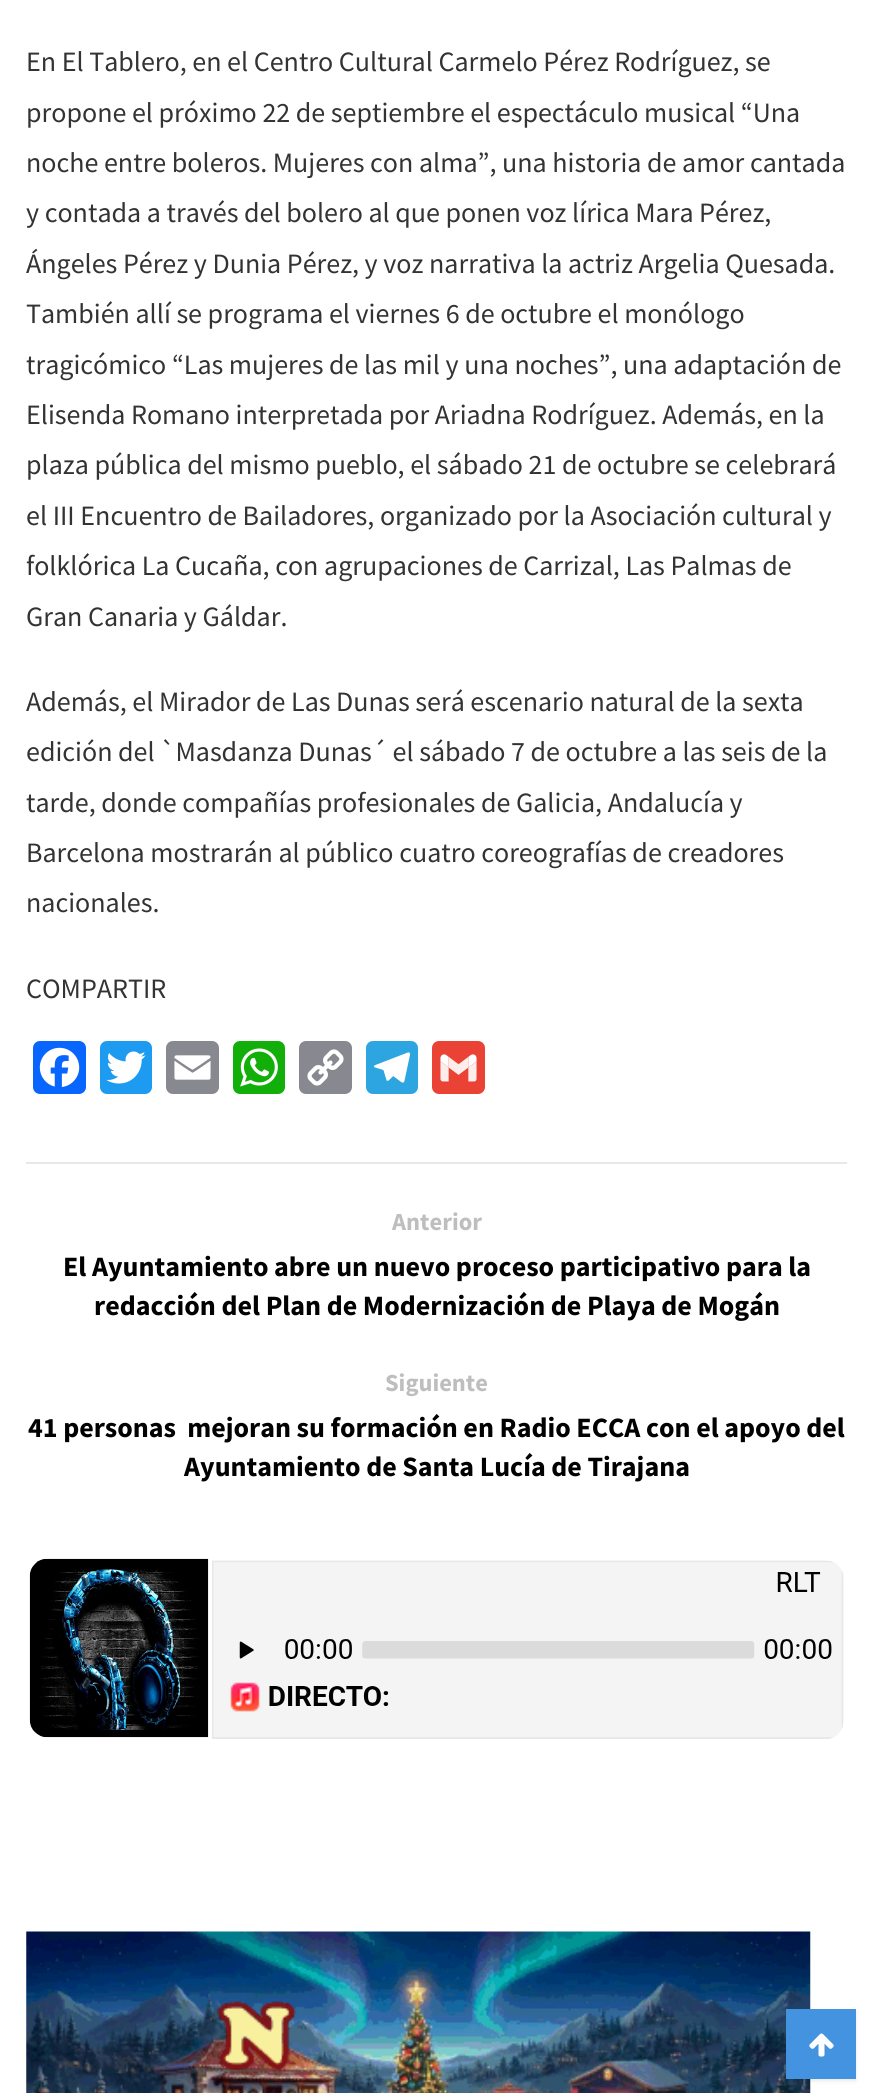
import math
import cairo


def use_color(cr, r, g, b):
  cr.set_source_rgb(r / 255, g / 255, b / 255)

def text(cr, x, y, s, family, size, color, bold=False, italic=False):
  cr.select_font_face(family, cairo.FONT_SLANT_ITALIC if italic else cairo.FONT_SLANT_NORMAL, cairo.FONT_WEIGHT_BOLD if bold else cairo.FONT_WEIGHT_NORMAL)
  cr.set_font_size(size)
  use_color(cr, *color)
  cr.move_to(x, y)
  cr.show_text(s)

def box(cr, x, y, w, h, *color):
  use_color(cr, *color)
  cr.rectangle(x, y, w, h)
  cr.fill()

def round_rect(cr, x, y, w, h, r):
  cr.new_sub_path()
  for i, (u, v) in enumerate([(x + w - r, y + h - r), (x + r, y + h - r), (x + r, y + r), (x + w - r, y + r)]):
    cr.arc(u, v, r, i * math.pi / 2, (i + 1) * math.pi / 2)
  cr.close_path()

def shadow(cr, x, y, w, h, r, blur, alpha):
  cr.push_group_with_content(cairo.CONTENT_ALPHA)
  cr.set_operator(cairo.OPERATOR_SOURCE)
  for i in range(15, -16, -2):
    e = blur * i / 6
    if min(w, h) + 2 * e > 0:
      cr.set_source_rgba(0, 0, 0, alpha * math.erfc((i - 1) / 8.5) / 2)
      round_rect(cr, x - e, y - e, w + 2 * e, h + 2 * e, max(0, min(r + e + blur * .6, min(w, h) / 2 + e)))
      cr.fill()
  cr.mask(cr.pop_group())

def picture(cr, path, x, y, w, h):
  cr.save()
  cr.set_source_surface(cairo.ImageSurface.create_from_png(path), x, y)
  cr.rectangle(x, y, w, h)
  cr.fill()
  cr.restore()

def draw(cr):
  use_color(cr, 255, 255, 255)
  cr.paint()
  use_color(cr, 8, 102, 255)
  round_rect(cr, 33, 1041, 53, 53, 7)
  cr.fill()
  picture(cr, "img_01.png", 39, 1047, 41, 40)
  use_color(cr, 29, 155, 240)
  round_rect(cr, 100, 1041, 52, 53, 7)
  cr.fill()
  picture(cr, "img_02.png", 106, 1051, 40, 33)
  use_color(cr, 136, 137, 144)
  round_rect(cr, 166, 1041, 53, 53, 7)
  cr.fill()
  picture(cr, "img_03.png", 174, 1055, 37, 25)
  use_color(cr, 18, 175, 10)
  round_rect(cr, 233, 1041, 52, 53, 7)
  cr.fill()
  picture(cr, "img_04.png", 240, 1048, 38, 39)
  use_color(cr, 136, 137, 144)
  round_rect(cr, 299, 1041, 53, 53, 7)
  cr.fill()
  picture(cr, "img_05.png", 307, 1049, 37, 37)
  use_color(cr, 44, 165, 224)
  round_rect(cr, 366, 1041, 52, 53, 7)
  cr.fill()
  picture(cr, "img_06.png", 374, 1052, 36, 31)
  use_color(cr, 234, 67, 53)
  round_rect(cr, 432, 1041, 53, 53, 7)
  cr.fill()
  picture(cr, "img_07.png", 440, 1054, 37, 28)
  box(cr, 26, 1162, 821, 2, 232, 232, 232)
  picture(cr, "img_08.png", 29, 1558, 815, 181)
  picture(cr, "img_09.png", 26, 1931, 785, 162)
  use_color(cr, 0, 0, 0)
  shadow(cr, 786, 2011, 70, 70, 0, 2, 0.09)
  box(cr, 786, 2009, 70, 70, 68, 147, 224)
  picture(cr, "img_10.png", 809, 2033, 25, 24)
  text(cr, 26, 71, "En El Tablero, en el Centro Cultural Carmelo Pérez Rodríguez, se", "Source Sans Pro", 28, (51, 51, 51))
  text(cr, 26, 122, "propone el próximo 22 de septiembre el espectáculo musical “Una", "Source Sans Pro", 28, (51, 51, 51))
  text(cr, 26, 172, "noche entre boleros. Mujeres con alma”, una historia de amor cantada", "Source Sans Pro", 28, (51, 51, 51))
  text(cr, 26, 222, "y contada a través del bolero al que ponen voz lírica Mara Pérez,", "Source Sans Pro", 28, (51, 51, 51))
  text(cr, 26, 273, "Ángeles Pérez y Dunia Pérez, y voz narrativa la actriz Argelia Quesada.", "Source Sans Pro", 28, (51, 51, 51))
  text(cr, 26, 323, "También allí se programa el viernes 6 de octubre el monólogo", "Source Sans Pro", 28, (51, 51, 51))
  text(cr, 26, 374, "tragicómico “Las mujeres de las mil y una noches”, una adaptación de", "Source Sans Pro", 28, (51, 51, 51))
  text(cr, 26, 424, "Elisenda Romano interpretada por Ariadna Rodríguez. Además, en la", "Source Sans Pro", 28, (51, 51, 51))
  text(cr, 26, 474, "plaza pública del mismo pueblo, el sábado 21 de octubre se celebrará", "Source Sans Pro", 28, (51, 51, 51))
  text(cr, 26, 525, "el III Encuentro de Bailadores, organizado por la Asociación cultural y", "Source Sans Pro", 28, (51, 51, 51))
  text(cr, 26, 575, "folklórica La Cucaña, con agrupaciones de Carrizal, Las Palmas de", "Source Sans Pro", 28, (51, 51, 51))
  text(cr, 26, 626, "Gran Canaria y Gáldar.", "Source Sans Pro", 28, (51, 51, 51))
  text(cr, 26, 711, "Además, el Mirador de Las Dunas será escenario natural de la sexta", "Source Sans Pro", 28, (51, 51, 51))
  text(cr, 26, 761, "edición del `Masdanza Dunas´ el sábado 7 de octubre a las seis de la", "Source Sans Pro", 28, (51, 51, 51))
  text(cr, 26, 812, "tarde, donde compañías profesionales de Galicia, Andalucía y", "Source Sans Pro", 28, (51, 51, 51))
  text(cr, 26, 862, "Barcelona mostrarán al público cuatro coreografías de creadores", "Source Sans Pro", 28, (51, 51, 51))
  text(cr, 26, 912, "nacionales.", "Source Sans Pro", 28, (51, 51, 51))
  text(cr, 26, 998, "COMPARTIR", "Source Sans Pro", 28, (51, 51, 51))
  text(cr, 392, 1230, "Anterior", "Source Sans Pro", 24.5, (190, 190, 190), bold=True)
  text(cr, 63, 1276, "El Ayuntamiento abre un nuevo proceso participativo para la", "Source Sans Pro", 28, (0, 0, 0), bold=True)
  text(cr, 94, 1315, "redacción del Plan de Modernización de Playa de Mogán", "Source Sans Pro", 28, (0, 0, 0), bold=True)
  text(cr, 385, 1391, "Siguiente", "Source Sans Pro", 24.5, (190, 190, 190), bold=True)
  text(cr, 28, 1437, "41 personas  mejoran su formación en Radio ECCA con el apoyo del", "Source Sans Pro", 28, (0, 0, 0), bold=True)
  text(cr, 184, 1476, "Ayuntamiento de Santa Lucía de Tirajana", "Source Sans Pro", 28, (0, 0, 0), bold=True)


surface = cairo.ImageSurface(cairo.FORMAT_RGB24, 872, 2093)
cr = cairo.Context(surface)
options = cairo.FontOptions()
options.set_hint_metrics(cairo.HINT_METRICS_OFF)
options.set_hint_style(cairo.HINT_STYLE_NONE)
cr.set_font_options(options)
cr.set_miter_limit(4)
draw(cr)
surface.write_to_png("out.png")
